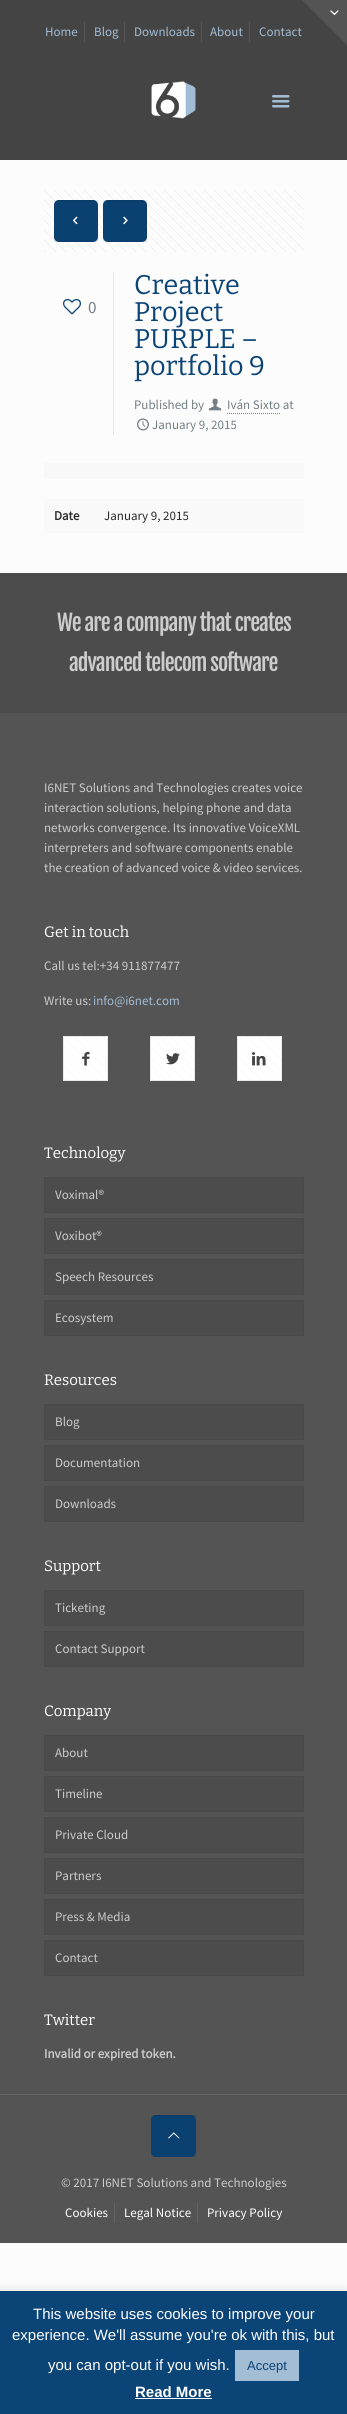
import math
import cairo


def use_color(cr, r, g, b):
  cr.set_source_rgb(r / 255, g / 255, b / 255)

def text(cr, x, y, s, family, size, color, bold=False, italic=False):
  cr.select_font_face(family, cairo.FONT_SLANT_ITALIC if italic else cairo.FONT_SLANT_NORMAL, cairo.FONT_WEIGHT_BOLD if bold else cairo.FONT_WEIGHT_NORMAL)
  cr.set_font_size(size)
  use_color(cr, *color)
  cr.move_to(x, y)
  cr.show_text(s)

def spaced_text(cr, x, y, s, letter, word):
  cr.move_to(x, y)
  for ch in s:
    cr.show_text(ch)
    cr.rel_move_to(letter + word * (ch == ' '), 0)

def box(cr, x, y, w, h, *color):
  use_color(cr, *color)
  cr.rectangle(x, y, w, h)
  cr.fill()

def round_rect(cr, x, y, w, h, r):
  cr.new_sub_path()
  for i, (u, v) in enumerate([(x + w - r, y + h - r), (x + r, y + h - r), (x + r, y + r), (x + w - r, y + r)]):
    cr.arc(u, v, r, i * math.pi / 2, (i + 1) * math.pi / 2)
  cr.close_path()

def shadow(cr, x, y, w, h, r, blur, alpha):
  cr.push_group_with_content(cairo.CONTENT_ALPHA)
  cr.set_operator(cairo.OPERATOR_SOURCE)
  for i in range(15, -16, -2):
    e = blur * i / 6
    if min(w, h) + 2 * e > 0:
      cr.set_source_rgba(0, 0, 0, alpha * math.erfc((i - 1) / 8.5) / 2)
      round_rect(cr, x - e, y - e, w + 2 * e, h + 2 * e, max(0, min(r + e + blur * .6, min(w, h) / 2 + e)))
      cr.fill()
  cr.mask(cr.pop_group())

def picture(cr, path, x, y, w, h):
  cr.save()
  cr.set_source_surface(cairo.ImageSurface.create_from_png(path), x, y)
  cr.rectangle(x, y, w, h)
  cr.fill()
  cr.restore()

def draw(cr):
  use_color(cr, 252, 252, 252)
  cr.paint()
  box(cr, 0, 0, 347, 160, 68, 68, 68)
  box(cr, 84, 22, 1, 20, 87, 87, 87)
  box(cr, 124, 22, 1, 20, 87, 87, 87)
  box(cr, 201, 22, 1, 20, 87, 87, 87)
  box(cr, 249, 22, 1, 20, 87, 87, 87)
  picture(cr, "img_01.png", 151, 81, 45, 38)
  picture(cr, "img_02.png", 272, 95, 18, 13)
  picture(cr, "img_03.png", 44, 190, 260, 62)
  use_color(cr, 11, 68, 119)
  round_rect(cr, 54, 200, 44, 42, 5)
  cr.fill()
  picture(cr, "img_04.png", 55, 200, 42, 2)
  cr.rectangle(54.5, 200.5, 43, 41)
  cr.set_source_rgba(0, 0, 0, 0.03)
  cr.set_line_width(1)
  cr.stroke()
  cr.set_source_rgba(0, 0, 0, 0.05)
  cr.rectangle(54, 200, 44, 42)
  cr.fill()
  picture(cr, "img_05.png", 73, 216, 5, 9)
  use_color(cr, 11, 68, 119)
  round_rect(cr, 103, 200, 44, 42, 5)
  cr.fill()
  picture(cr, "img_06.png", 104, 200, 42, 2)
  cr.rectangle(103.5, 200.5, 43, 41)
  cr.set_source_rgba(0, 0, 0, 0.03)
  cr.stroke()
  cr.set_source_rgba(0, 0, 0, 0.05)
  cr.rectangle(103, 200, 44, 42)
  cr.fill()
  picture(cr, "img_07.png", 123, 216, 5, 9)
  picture(cr, "img_08.png", 63, 299, 18, 16)
  box(cr, 113, 272, 1, 163, 232, 232, 232)
  picture(cr, "img_09.png", 209, 398, 13, 13)
  cr.new_path()
  cr.move_to(227, 413.5)
  cr.line_to(280, 413.5)
  use_color(cr, 115, 126, 134)
  cr.set_dash([1, 1])
  cr.stroke()
  picture(cr, "img_10.png", 137, 418, 12, 13)
  box(cr, 44, 463, 260, 16, 248, 248, 248)
  box(cr, 44, 499, 260, 34, 249, 249, 249)
  box(cr, 0, 713, 347, 1530, 84, 84, 84)
  box(cr, 0, 573, 347, 140, 76, 76, 76)
  box(cr, 63, 1036, 45, 45, 255, 255, 255)
  picture(cr, "img_11.png", 63, 1036, 45, 45)
  cr.rectangle(63.5, 1036.5, 44, 44)
  cr.set_source_rgba(0, 0, 0, 0.08)
  cr.set_dash([])
  cr.stroke()
  picture(cr, "img_12.png", 82, 1052, 8, 14)
  box(cr, 150, 1036, 45, 45, 255, 255, 255)
  picture(cr, "img_11.png", 150, 1036, 45, 45)
  cr.rectangle(150.5, 1036.5, 44, 44)
  cr.set_source_rgba(0, 0, 0, 0.08)
  cr.stroke()
  picture(cr, "img_13.png", 166, 1053, 14, 12)
  box(cr, 237, 1036, 45, 45, 255, 255, 255)
  picture(cr, "img_11.png", 237, 1036, 45, 45)
  cr.rectangle(237.5, 1036.5, 44, 44)
  cr.set_source_rgba(0, 0, 0, 0.08)
  cr.stroke()
  picture(cr, "img_14.png", 252, 1052, 14, 14)
  use_color(cr, 76, 76, 76)
  cr.rectangle(44.5, 1177.5, 259, 35)
  cr.fill_preserve()
  use_color(cr, 73, 73, 73)
  cr.stroke()
  use_color(cr, 76, 76, 76)
  cr.rectangle(44.5, 1218.5, 259, 35)
  cr.fill_preserve()
  use_color(cr, 73, 73, 73)
  cr.stroke()
  use_color(cr, 76, 76, 76)
  cr.rectangle(44.5, 1259.5, 259, 35)
  cr.fill_preserve()
  use_color(cr, 73, 73, 73)
  cr.stroke()
  use_color(cr, 76, 76, 76)
  cr.rectangle(44.5, 1300.5, 259, 35)
  cr.fill_preserve()
  use_color(cr, 73, 73, 73)
  cr.stroke()
  use_color(cr, 76, 76, 76)
  cr.rectangle(44.5, 1404.5, 259, 35)
  cr.fill_preserve()
  use_color(cr, 73, 73, 73)
  cr.stroke()
  use_color(cr, 76, 76, 76)
  cr.rectangle(44.5, 1445.5, 259, 35)
  cr.fill_preserve()
  use_color(cr, 73, 73, 73)
  cr.stroke()
  use_color(cr, 76, 76, 76)
  cr.rectangle(44.5, 1486.5, 259, 35)
  cr.fill_preserve()
  use_color(cr, 73, 73, 73)
  cr.stroke()
  use_color(cr, 76, 76, 76)
  cr.rectangle(44.5, 1590.5, 259, 35)
  cr.fill_preserve()
  use_color(cr, 73, 73, 73)
  cr.stroke()
  use_color(cr, 76, 76, 76)
  cr.rectangle(44.5, 1631.5, 259, 35)
  cr.fill_preserve()
  use_color(cr, 73, 73, 73)
  cr.stroke()
  use_color(cr, 76, 76, 76)
  cr.rectangle(44.5, 1735.5, 259, 35)
  cr.fill_preserve()
  use_color(cr, 73, 73, 73)
  cr.stroke()
  use_color(cr, 76, 76, 76)
  cr.rectangle(44.5, 1776.5, 259, 35)
  cr.fill_preserve()
  use_color(cr, 73, 73, 73)
  cr.stroke()
  use_color(cr, 76, 76, 76)
  cr.rectangle(44.5, 1817.5, 259, 35)
  cr.fill_preserve()
  use_color(cr, 73, 73, 73)
  cr.stroke()
  use_color(cr, 76, 76, 76)
  cr.rectangle(44.5, 1858.5, 259, 35)
  cr.fill_preserve()
  use_color(cr, 73, 73, 73)
  cr.stroke()
  use_color(cr, 76, 76, 76)
  cr.rectangle(44.5, 1899.5, 259, 35)
  cr.fill_preserve()
  use_color(cr, 73, 73, 73)
  cr.stroke()
  use_color(cr, 76, 76, 76)
  cr.rectangle(44.5, 1940.5, 259, 35)
  cr.fill_preserve()
  use_color(cr, 73, 73, 73)
  cr.stroke()
  box(cr, 0, 2094, 347, 1, 101, 101, 101)
  use_color(cr, 11, 68, 119)
  round_rect(cr, 151, 2115, 45, 42, 5)
  cr.fill()
  picture(cr, "img_15.png", 153, 2115, 41, 2)
  cr.rectangle(151.5, 2115.5, 44, 41)
  cr.set_source_rgba(0, 0, 0, 0.03)
  cr.stroke()
  cr.set_source_rgba(0, 0, 0, 0.05)
  cr.rectangle(151, 2115, 45, 42)
  cr.fill()
  picture(cr, "img_16.png", 168, 2132, 12, 7)
  box(cr, 114, 2203, 1, 20, 101, 101, 101)
  box(cr, 197, 2203, 1, 20, 101, 101, 101)
  use_color(cr, 84, 84, 84)
  cr.new_path()
  cr.move_to(347, 0)
  cr.line_to(347, 45)
  cr.line_to(302, 0)
  cr.close_path()
  cr.fill()
  picture(cr, "img_17.png", 330, 10, 9, 5)
  use_color(cr, 172, 171, 171)
  shadow(cr, 0, 2290, 347, 123, 0, 5, 0.3)
  box(cr, 0, 2291, 347, 123, 11, 68, 119)
  box(cr, 235, 2350, 64, 31, 163, 189, 213)
  box(cr, 135, 2398, 77, 1, 255, 255, 255)
  text(cr, 45, 36, "Home", "Source Sans Pro", 13, (163, 189, 213))
  text(cr, 94, 36, "Blog", "Source Sans Pro", 13, (163, 189, 213))
  text(cr, 134, 36, "Downloads", "Source Sans Pro", 13, (163, 189, 213))
  text(cr, 210, 36, "About", "Source Sans Pro", 13, (163, 189, 213))
  text(cr, 259, 36, "Contact", "Source Sans Pro", 13, (163, 189, 213))
  text(cr, 88, 313, "0", "Source Sans Pro", 17, (115, 126, 134))
  text(cr, 134, 294, "Creative", "Bitter Thin", 27, (11, 68, 119))
  text(cr, 134, 321, "Project", "Bitter Thin", 27, (11, 68, 119))
  text(cr, 134, 348, "PURPLE –", "Bitter Thin", 27, (11, 68, 119))
  text(cr, 134, 375, "portfolio 9", "Bitter Thin", 27, (11, 68, 119))
  text(cr, 134, 409, "Published by", "Source Sans Pro", 13, (115, 126, 134))
  text(cr, 227, 409, "Iván Sixto at", "Source Sans Pro", 13, (115, 126, 134))
  text(cr, 152, 429, "January 9, 2015", "Source Sans Pro", 13, (115, 126, 134))
  text(cr, 54, 520, "Date", "Source Sans Pro", 13, (41, 41, 41), bold=True)
  text(cr, 104, 520, "January 9, 2015", "Source Sans Pro", 13, (41, 41, 41))
  cr.select_font_face("Fjalla One")
  cr.set_font_size(22.1)
  use_color(cr, 204, 204, 204)
  spaced_text(cr, 57, 631, "We are a company that creates", -1, 0)
  spaced_text(cr, 69, 671, "advanced telecom software", -1, 0)
  text(cr, 44, 792, "I6NET Solutions and Technologies creates voice", "Source Sans Pro", 13, (204, 204, 204))
  text(cr, 44, 812, "interaction solutions, helping phone and data", "Source Sans Pro", 13, (204, 204, 204))
  text(cr, 44, 832, "networks convergence. Its innovative VoiceXML", "Source Sans Pro", 13, (204, 204, 204))
  text(cr, 44, 852, "interpreters and software components enable", "Source Sans Pro", 13, (204, 204, 204))
  text(cr, 44, 872, "the creation of advanced voice & video services.", "Source Sans Pro", 13, (204, 204, 204))
  text(cr, 44, 937, "Get in touch", "Bitter Thin", 15, (255, 255, 255))
  text(cr, 44, 970, "Call us tel:+34 911877477", "Source Sans Pro", 13, (204, 204, 204))
  text(cr, 44, 1005, "Write us:", "Source Sans Pro", 13, (204, 204, 204))
  text(cr, 93, 1005, "info@i6net.com", "Source Sans Pro", 13, (163, 189, 213))
  text(cr, 44, 1158, "Technology", "Bitter Thin", 15, (255, 255, 255))
  text(cr, 55, 1199, "Voximal®", "Source Sans Pro", 13, (204, 204, 204))
  text(cr, 55, 1240, "Voxibot®", "Source Sans Pro", 13, (204, 204, 204))
  text(cr, 55, 1281, "Speech Resources", "Source Sans Pro", 13, (204, 204, 204))
  text(cr, 55, 1322, "Ecosystem", "Source Sans Pro", 13, (204, 204, 204))
  text(cr, 44, 1385, "Resources", "Bitter Thin", 15, (255, 255, 255))
  text(cr, 55, 1426, "Blog", "Source Sans Pro", 13, (204, 204, 204))
  text(cr, 55, 1467, "Documentation", "Source Sans Pro", 13, (204, 204, 204))
  text(cr, 55, 1508, "Downloads", "Source Sans Pro", 13, (204, 204, 204))
  text(cr, 44, 1571, "Support", "Bitter Thin", 15, (255, 255, 255))
  text(cr, 55, 1612, "Ticketing", "Source Sans Pro", 13, (204, 204, 204))
  text(cr, 55, 1653, "Contact Support", "Source Sans Pro", 13, (204, 204, 204))
  text(cr, 44, 1716, "Company", "Bitter Thin", 15, (255, 255, 255))
  text(cr, 55, 1757, "About", "Source Sans Pro", 13, (204, 204, 204))
  text(cr, 55, 1798, "Timeline", "Source Sans Pro", 13, (204, 204, 204))
  text(cr, 55, 1839, "Private Cloud", "Source Sans Pro", 13, (204, 204, 204))
  text(cr, 55, 1880, "Partners", "Source Sans Pro", 13, (204, 204, 204))
  text(cr, 55, 1921, "Press & Media", "Source Sans Pro", 13, (204, 204, 204))
  text(cr, 55, 1962, "Contact", "Source Sans Pro", 13, (204, 204, 204))
  text(cr, 44, 2025, "Twitter", "Bitter Thin", 15, (255, 255, 255))
  text(cr, 44, 2058, "Invalid or expired token.", "Source Sans Pro", 13, (204, 204, 204), bold=True)
  text(cr, 61, 2187, "© 2017 I6NET Solutions and Technologies", "Source Sans Pro", 13, (204, 204, 204))
  text(cr, 65, 2217, "Cookies", "Source Sans Pro", 13, (255, 255, 255))
  text(cr, 124, 2217, "Legal Notice", "Source Sans Pro", 13, (255, 255, 255))
  text(cr, 207, 2217, "Privacy Policy", "Source Sans Pro", 13, (255, 255, 255))
  text(cr, 33, 2319, "This website uses cookies to improve your", "Liberation Sans", 15, (255, 255, 255))
  text(cr, 12, 2340, "experience. We'll assume you're ok with this, but", "Liberation Sans", 15, (255, 255, 255))
  text(cr, 48, 2370, "you can opt-out if you wish.", "Liberation Sans", 15, (255, 255, 255))
  text(cr, 247, 2370, "Accept", "Liberation Sans", 13, (11, 68, 119))
  text(cr, 135, 2397, "Read More", "Liberation Sans", 15, (255, 255, 255), bold=True)


surface = cairo.ImageSurface(cairo.FORMAT_RGB24, 347, 2414)
cr = cairo.Context(surface)
options = cairo.FontOptions()
options.set_hint_metrics(cairo.HINT_METRICS_OFF)
options.set_hint_style(cairo.HINT_STYLE_NONE)
cr.set_font_options(options)
cr.set_miter_limit(4)
draw(cr)
surface.write_to_png("out.png")
